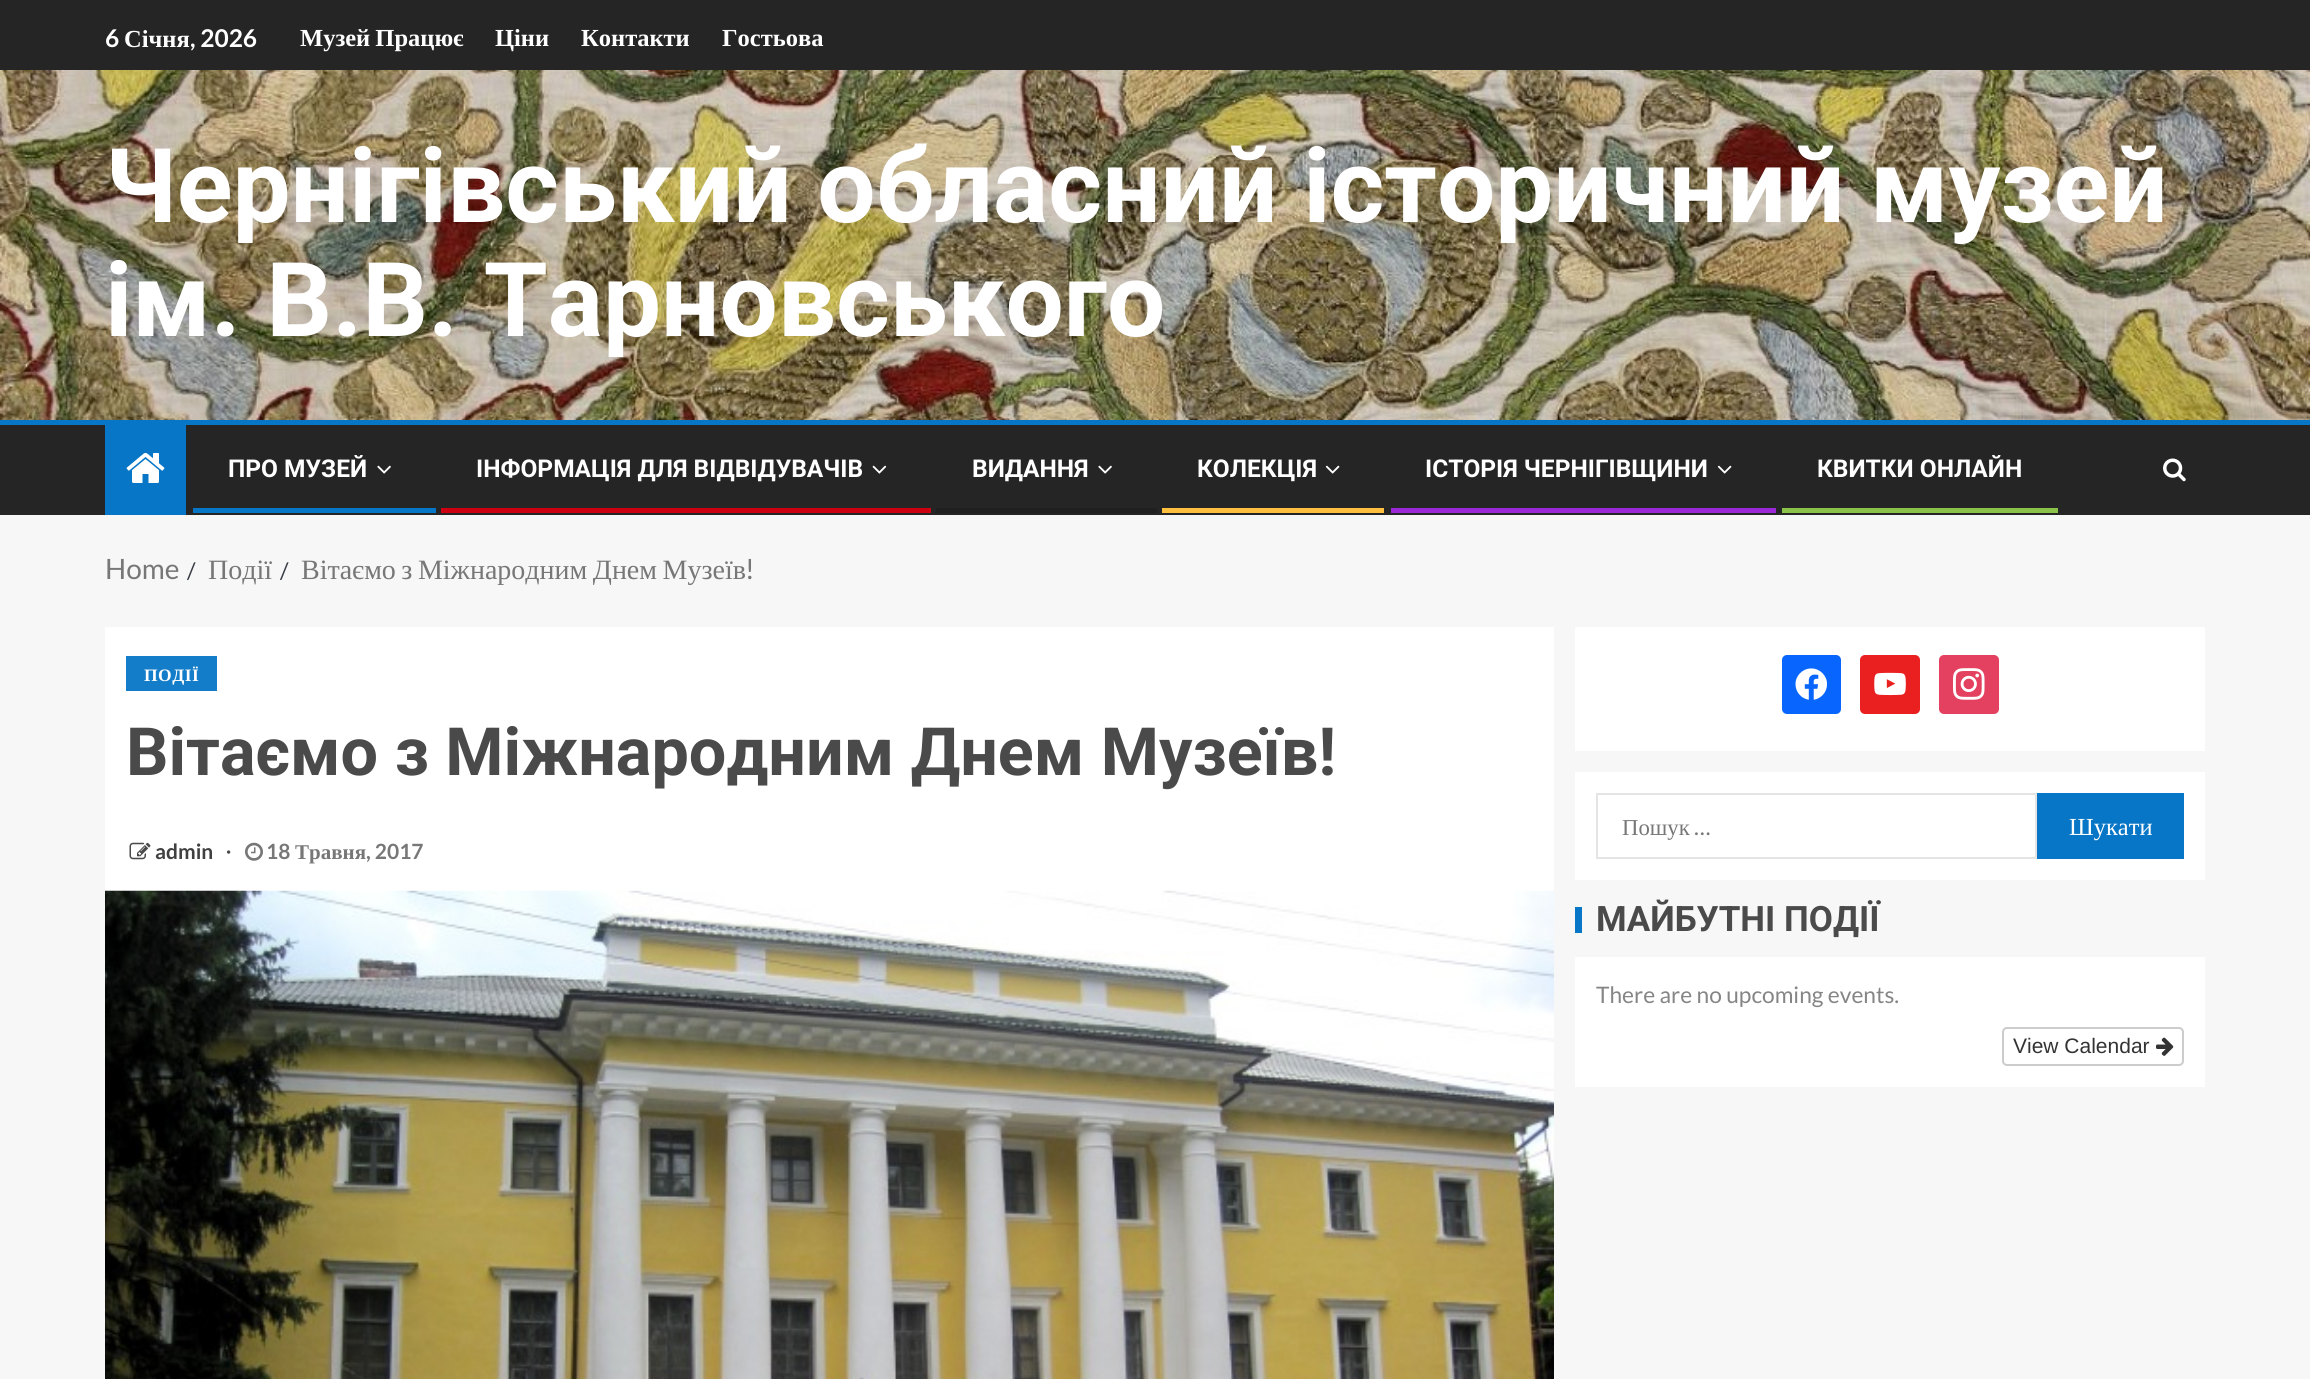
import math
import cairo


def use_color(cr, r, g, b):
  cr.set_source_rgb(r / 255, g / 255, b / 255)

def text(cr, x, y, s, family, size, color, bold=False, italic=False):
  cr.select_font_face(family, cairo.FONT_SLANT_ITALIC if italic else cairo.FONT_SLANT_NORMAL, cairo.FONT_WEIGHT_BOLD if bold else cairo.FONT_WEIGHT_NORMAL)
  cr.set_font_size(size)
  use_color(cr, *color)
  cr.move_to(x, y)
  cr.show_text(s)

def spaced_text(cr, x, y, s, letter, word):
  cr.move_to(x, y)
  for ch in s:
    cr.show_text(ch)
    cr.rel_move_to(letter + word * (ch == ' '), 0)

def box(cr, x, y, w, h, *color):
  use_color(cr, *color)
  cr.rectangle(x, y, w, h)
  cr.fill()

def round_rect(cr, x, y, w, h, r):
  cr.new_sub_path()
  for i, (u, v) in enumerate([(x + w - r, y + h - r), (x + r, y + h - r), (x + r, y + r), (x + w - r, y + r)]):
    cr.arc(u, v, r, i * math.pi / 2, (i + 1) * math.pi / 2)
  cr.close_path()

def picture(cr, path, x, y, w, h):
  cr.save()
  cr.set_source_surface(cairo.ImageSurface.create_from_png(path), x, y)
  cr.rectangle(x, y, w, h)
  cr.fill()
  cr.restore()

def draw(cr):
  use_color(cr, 247, 247, 247)
  cr.paint()
  box(cr, 0, 0, 2310, 70, 37, 37, 37)
  picture(cr, "img_01.png", 0, 70, 2310, 350)
  box(cr, 0, 425, 2310, 90, 37, 37, 37)
  box(cr, 0, 420, 2310, 5, 7, 118, 198)
  box(cr, 105, 425, 81, 90, 7, 118, 198)
  picture(cr, "img_02.png", 126, 452, 39, 31)
  picture(cr, "img_03.png", 377, 465, 14, 9)
  box(cr, 193, 508, 243, 5, 7, 118, 198)
  picture(cr, "img_04.png", 872, 465, 15, 9)
  box(cr, 441, 508, 490, 5, 204, 0, 16)
  picture(cr, "img_03.png", 1098, 465, 14, 9)
  box(cr, 936, 508, 221, 5, 32, 32, 32)
  picture(cr, "img_05.png", 1325, 465, 15, 9)
  box(cr, 1162, 508, 222, 5, 255, 191, 63)
  picture(cr, "img_05.png", 1717, 465, 15, 9)
  box(cr, 1391, 508, 385, 5, 156, 39, 217)
  box(cr, 1782, 508, 276, 5, 139, 195, 74)
  picture(cr, "img_06.png", 2163, 458, 23, 24)
  box(cr, 105, 627, 1449, 264, 255, 255, 255)
  box(cr, 126, 656, 91, 35, 19, 125, 201)
  picture(cr, "img_07.png", 129, 842, 22, 18)
  picture(cr, "img_08.png", 245, 842, 18, 19)
  picture(cr, "img_09.png", 105, 890, 1449, 489)
  box(cr, 1575, 627, 630, 124, 255, 255, 255)
  use_color(cr, 8, 102, 255)
  round_rect(cr, 1782, 655, 59, 59, 5)
  cr.fill()
  picture(cr, "img_10.png", 1795, 668, 32, 32)
  use_color(cr, 234, 32, 32)
  round_rect(cr, 1860, 655, 60, 59, 5)
  cr.fill()
  picture(cr, "img_11.png", 1874, 672, 32, 24)
  use_color(cr, 228, 64, 95)
  round_rect(cr, 1939, 655, 60, 59, 5)
  cr.fill()
  picture(cr, "img_12.png", 1953, 668, 32, 32)
  box(cr, 1575, 772, 630, 108, 255, 255, 255)
  cr.rectangle(1597, 794, 439, 64)
  use_color(cr, 228, 228, 228)
  cr.stroke()
  box(cr, 2037, 793, 147, 66, 7, 118, 198)
  box(cr, 1575, 907, 7, 26, 7, 118, 198)
  box(cr, 1575, 957, 630, 130, 255, 255, 255)
  round_rect(cr, 2003, 1028, 180, 37, 4)
  use_color(cr, 204, 204, 204)
  cr.stroke()
  picture(cr, "img_13.png", 2156, 1037, 18, 19)
  text(cr, 105, 47, "6", "Lato", 24.5, (255, 255, 255), bold=True)
  text(cr, 124, 47, "Січня", "Liberation Serif", 24.5, (255, 255, 255), bold=True)
  text(cr, 190, 47, ", 2026", "Lato", 24.5, (255, 255, 255), bold=True)
  cr.select_font_face("Liberation Serif", cairo.FONT_SLANT_NORMAL, cairo.FONT_WEIGHT_BOLD)
  spaced_text(cr, 300, 46, "Музей Працює", 0, -1)
  text(cr, 495, 46, "Ціни", "Liberation Serif", 24.5, (255, 255, 255), bold=True)
  text(cr, 581, 46, "Контакти", "Liberation Serif", 24.5, (255, 255, 255), bold=True)
  text(cr, 722, 46, "Гостьова", "Liberation Serif", 24.5, (255, 255, 255), bold=True)
  text(cr, 105, 222, "Чернігівський обласний історичний музей", "Roboto", 103.25, (255, 255, 255), bold=True)
  text(cr, 105, 336, "ім. В.В. Тарновського", "Roboto", 103.25, (255, 255, 255), bold=True)
  text(cr, 228, 477, "ПРО МУЗЕЙ", "Roboto", 24.5, (255, 255, 255), bold=True)
  text(cr, 476, 477, "ІНФОРМАЦІЯ ДЛЯ ВІДВІДУВАЧІВ", "Roboto", 24.5, (255, 255, 255), bold=True)
  text(cr, 972, 477, "ВИДАННЯ", "Roboto", 24.5, (255, 255, 255), bold=True)
  text(cr, 1197, 477, "КОЛЕКЦІЯ", "Roboto", 24.5, (255, 255, 255), bold=True)
  text(cr, 1425, 477, "ІСТОРІЯ ЧЕРНІГІВЩИНИ", "Roboto", 24.5, (255, 255, 255), bold=True)
  text(cr, 1817, 477, "КВИТКИ ОНЛАЙН", "Roboto", 24.5, (255, 255, 255), bold=True)
  text(cr, 105, 579, "Home", "Lato", 28, (119, 119, 119))
  text(cr, 187, 579, "/", "Lato", 22.75, (57, 62, 70))
  text(cr, 208, 579, "Події", "Liberation Serif", 28, (119, 119, 119))
  text(cr, 280, 579, "/", "Lato", 22.75, (57, 62, 70))
  cr.select_font_face("Liberation Serif")
  cr.set_font_size(28)
  use_color(cr, 119, 119, 119)
  spaced_text(cr, 301, 579, "Вітаємо з Міжнародним Днем Музеїв", 0, -1.5)
  text(cr, 745, 579, "!", "Lato", 28, (119, 119, 119))
  cr.select_font_face("Liberation Serif", cairo.FONT_SLANT_NORMAL, cairo.FONT_WEIGHT_BOLD)
  cr.set_font_size(17.5)
  use_color(cr, 255, 255, 255)
  spaced_text(cr, 144, 681, "ПОДІЇ", 0.5, 0)
  text(cr, 126, 775, "Вітаємо з Міжнародним Днем Музеїв!", "Roboto", 66.5, (74, 74, 74), bold=True)
  text(cr, 155, 859, "admin", "Lato", 21, (64, 64, 64), bold=True)
  text(cr, 226, 859, "∙", "Liberation Serif", 21, (74, 74, 74), bold=True)
  text(cr, 266, 859, "18", "Lato", 21, (119, 119, 119), bold=True)
  text(cr, 295, 859, "Травня", "Liberation Serif", 21, (119, 119, 119), bold=True)
  text(cr, 366, 859, ", 2017", "Lato", 21, (119, 119, 119), bold=True)
  text(cr, 1622, 835, "Пошук", "Liberation Serif", 22.75, (119, 119, 119))
  text(cr, 1694, 835, "…", "Lato", 22.75, (119, 119, 119))
  text(cr, 2069, 835, "Шукати", "Liberation Serif", 24.5, (255, 255, 255))
  text(cr, 1596, 931, "МАЙБУТНІ ПОДІЇ", "Roboto", 35, (74, 74, 74), bold=True)
  text(cr, 1596, 1003, "There are no upcoming events.", "Lato", 22.75, (133, 133, 133))
  text(cr, 2013, 1053, "View Calendar", "Liberation Sans", 21, (51, 51, 51))


surface = cairo.ImageSurface(cairo.FORMAT_RGB24, 2310, 1379)
cr = cairo.Context(surface)
options = cairo.FontOptions()
options.set_hint_metrics(cairo.HINT_METRICS_OFF)
options.set_hint_style(cairo.HINT_STYLE_NONE)
cr.set_font_options(options)
cr.set_miter_limit(4)
draw(cr)
surface.write_to_png("out.png")
